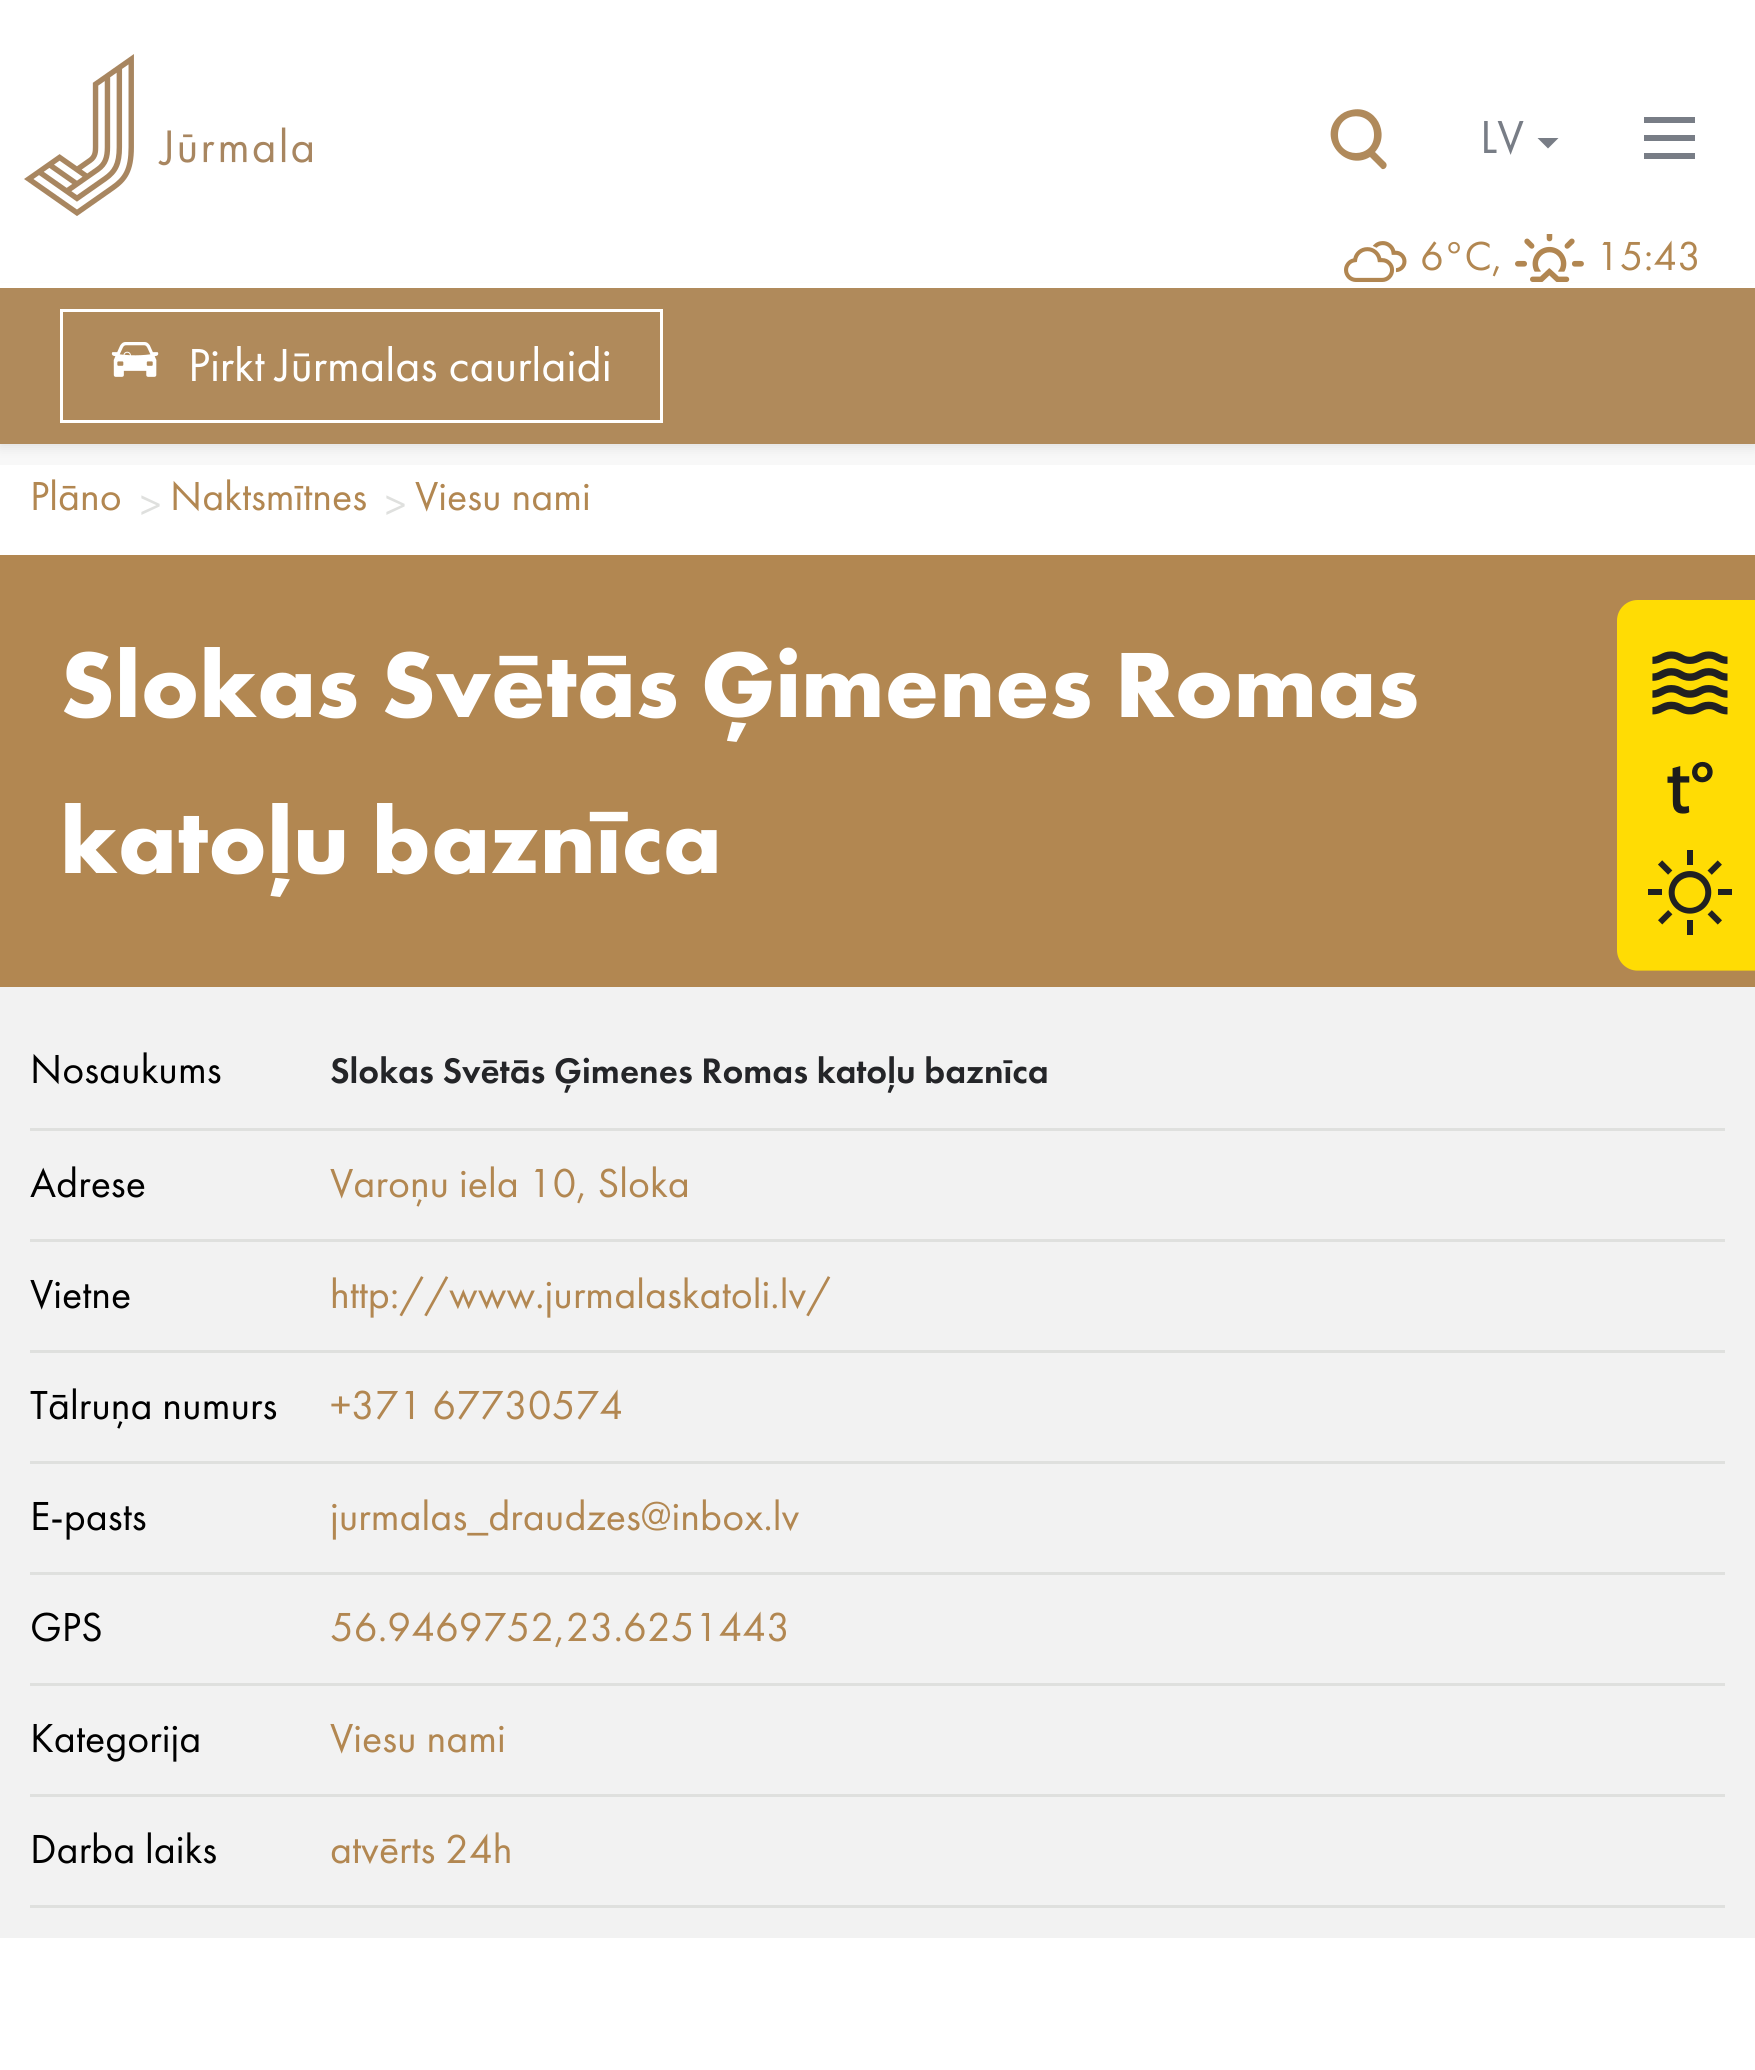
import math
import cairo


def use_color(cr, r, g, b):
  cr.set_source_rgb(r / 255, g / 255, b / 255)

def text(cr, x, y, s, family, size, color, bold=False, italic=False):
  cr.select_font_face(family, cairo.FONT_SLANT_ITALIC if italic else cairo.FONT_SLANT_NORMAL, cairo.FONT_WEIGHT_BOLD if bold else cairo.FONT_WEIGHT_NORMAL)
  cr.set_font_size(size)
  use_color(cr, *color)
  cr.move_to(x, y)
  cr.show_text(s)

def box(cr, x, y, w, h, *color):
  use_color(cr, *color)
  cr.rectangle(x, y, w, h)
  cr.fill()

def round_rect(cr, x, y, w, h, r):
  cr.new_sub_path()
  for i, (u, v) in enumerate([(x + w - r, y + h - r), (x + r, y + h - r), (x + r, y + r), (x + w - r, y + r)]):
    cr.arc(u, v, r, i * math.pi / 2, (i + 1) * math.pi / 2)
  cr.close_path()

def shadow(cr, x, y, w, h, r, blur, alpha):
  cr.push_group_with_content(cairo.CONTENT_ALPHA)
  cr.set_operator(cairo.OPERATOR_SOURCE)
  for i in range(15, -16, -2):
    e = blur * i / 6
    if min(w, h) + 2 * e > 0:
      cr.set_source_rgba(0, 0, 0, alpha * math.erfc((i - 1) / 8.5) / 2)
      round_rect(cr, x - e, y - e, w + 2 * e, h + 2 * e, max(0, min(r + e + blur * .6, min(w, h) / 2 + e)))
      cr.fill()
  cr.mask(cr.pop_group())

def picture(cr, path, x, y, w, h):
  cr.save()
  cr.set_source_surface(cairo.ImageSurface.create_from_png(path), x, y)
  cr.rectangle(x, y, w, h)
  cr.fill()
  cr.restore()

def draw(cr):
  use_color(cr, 255, 255, 255)
  cr.paint()
  use_color(cr, 0, 0, 0)
  shadow(cr, 0, 291, 1755, 156, 0, 6, 0.1)
  box(cr, 0, 283, 1755, 5, 255, 255, 255)
  picture(cr, "img_01.png", 24, 54, 288, 162)
  use_color(cr, 176, 138, 91)
  cr.new_path()
  cr.move_to(1386, 163)
  cr.line_to(1375, 152)
  cr.curve_to(1391, 134, 1376, 104, 1351, 110)
  cr.curve_to(1346, 111, 1342, 113, 1338, 117)
  cr.curve_to(1317, 138, 1345, 172, 1370, 157)
  cr.line_to(1382, 169)
  cr.curve_to(1385, 170, 1388, 166, 1386, 163)
  cr.close_path()
  cr.move_to(1338, 135)
  cr.curve_to(1338, 110, 1374, 110, 1374, 135)
  cr.curve_to(1374, 159, 1338, 159, 1338, 135)
  cr.close_path()
  cr.fill()
  cr.save()
  cr.rectangle(1536, 138, 24, 12)
  cr.clip()
  use_color(cr, 120, 125, 134)
  cr.new_path()
  cr.move_to(1560, 136.5)
  cr.line_to(1548, 148.5)
  cr.line_to(1536, 136.5)
  cr.close_path()
  cr.fill()
  cr.restore()
  box(cr, 1644, 117, 51, 6, 120, 125, 134)
  box(cr, 1644, 135, 51, 6, 120, 125, 134)
  box(cr, 1644, 153, 51, 6, 120, 125, 134)
  picture(cr, "img_02.png", 1344, 241, 63, 41)
  picture(cr, "img_03.png", 1515, 234, 69, 48)
  box(cr, 0, 288, 1755, 156, 176, 138, 91)
  cr.rectangle(61.5, 310.5, 600, 111)
  use_color(cr, 255, 255, 255)
  cr.set_line_width(3)
  cr.stroke()
  picture(cr, "img_04.png", 111, 342, 48, 35)
  cr.set_source_rgba(0, 0, 0, 0.03)
  cr.rectangle(0, 444, 1755, 21)
  cr.fill()
  box(cr, 0, 555, 1755, 432, 178, 135, 81)
  box(cr, 0, 987, 1755, 951, 242, 242, 242)
  box(cr, 30, 1128, 1695, 3, 223, 224, 222)
  box(cr, 30, 1239, 1695, 3, 223, 224, 222)
  box(cr, 30, 1350, 1695, 3, 223, 224, 222)
  box(cr, 30, 1461, 1695, 3, 223, 224, 222)
  box(cr, 30, 1572, 1695, 3, 223, 224, 222)
  box(cr, 30, 1683, 1695, 3, 223, 224, 222)
  box(cr, 30, 1794, 1695, 3, 223, 224, 222)
  box(cr, 30, 1905, 1695, 3, 223, 224, 222)
  picture(cr, "img_05.png", 1617, 600, 138, 371)
  text(cr, 1480, 153, "LV", "Futura PT", 48, (120, 125, 134))
  text(cr, 1420, 270, "6°C,", "Futura PT", 42, (178, 135, 81))
  text(cr, 1596, 270, "15:43", "Futura PT", 42, (178, 135, 81))
  text(cr, 188, 381, "Pirkt Jūrmalas caurlaidi", "Futura PT", 48, (255, 255, 255))
  text(cr, 30, 510, "Plāno", "Futura PT", 42, (178, 135, 81))
  text(cr, 140, 519, ">", "Futura PT", 42, (223, 224, 222))
  text(cr, 170, 510, "Naktsmītnes", "Futura PT", 42, (178, 135, 81))
  text(cr, 385, 519, ">", "Futura PT", 42, (223, 224, 222))
  text(cr, 415, 510, "Viesu nami", "Futura PT", 42, (178, 135, 81))
  text(cr, 60, 717, "Slokas Svētās Ģimenes Romas", "Futura PT", 96, (255, 255, 255), bold=True)
  text(cr, 60, 873, "katoļu baznīca", "Futura PT", 96, (255, 255, 255), bold=True)
  text(cr, 30, 1083, "Nosaukums", "Futura PT", 42, (0, 0, 0))
  text(cr, 330, 1083, "Slokas Svētās Ģimenes Romas katoļu baznīca", "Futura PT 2", 36.75, (36, 37, 40))
  text(cr, 30, 1197, "Adrese", "Futura PT", 42, (0, 0, 0))
  text(cr, 330, 1197, "Varoņu iela 10, Sloka", "Futura PT", 42, (178, 135, 81))
  text(cr, 30, 1308, "Vietne", "Futura PT", 42, (0, 0, 0))
  text(cr, 330, 1308, "http://www.jurmalaskatoli.lv/", "Futura PT", 42, (178, 135, 81))
  text(cr, 30, 1419, "Tālruņa numurs", "Futura PT", 42, (0, 0, 0))
  text(cr, 330, 1419, "+371 67730574", "Futura PT", 42, (178, 135, 81))
  text(cr, 30, 1530, "E-pasts", "Futura PT", 42, (0, 0, 0))
  text(cr, 330, 1530, "jurmalas_draudzes@inbox.lv", "Futura PT", 42, (178, 135, 81))
  text(cr, 30, 1641, "GPS", "Futura PT", 42, (0, 0, 0))
  text(cr, 330, 1641, "56.9469752,23.6251443", "Futura PT", 42, (178, 135, 81))
  text(cr, 30, 1752, "Kategorija", "Futura PT", 42, (0, 0, 0))
  text(cr, 330, 1752, "Viesu nami", "Futura PT", 42, (178, 135, 81))
  text(cr, 30, 1863, "Darba laiks", "Futura PT", 42, (0, 0, 0))
  text(cr, 330, 1863, "atvērts 24h", "Futura PT", 42, (178, 135, 81))


surface = cairo.ImageSurface(cairo.FORMAT_RGB24, 1755, 2070)
cr = cairo.Context(surface)
options = cairo.FontOptions()
options.set_hint_metrics(cairo.HINT_METRICS_OFF)
options.set_hint_style(cairo.HINT_STYLE_NONE)
cr.set_font_options(options)
cr.set_miter_limit(4)
draw(cr)
surface.write_to_png("out.png")
